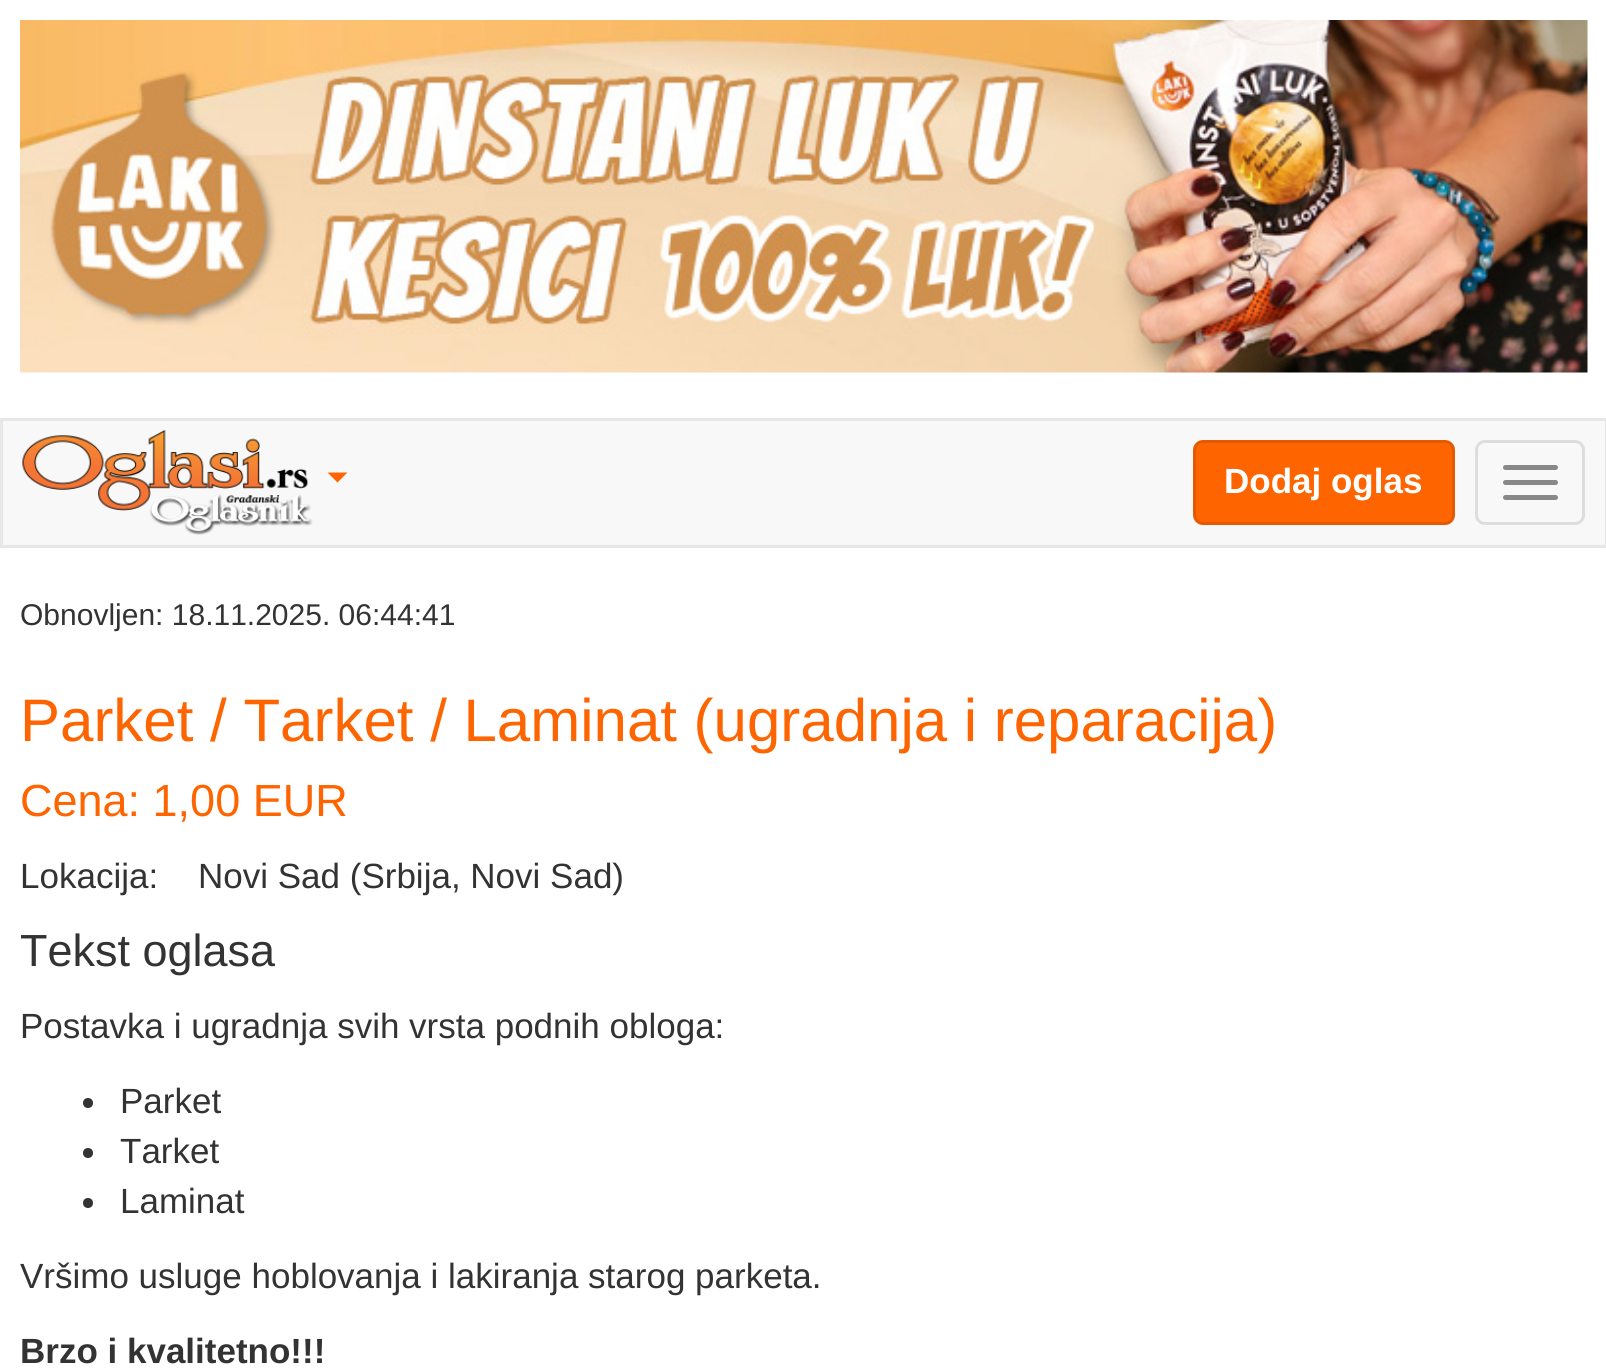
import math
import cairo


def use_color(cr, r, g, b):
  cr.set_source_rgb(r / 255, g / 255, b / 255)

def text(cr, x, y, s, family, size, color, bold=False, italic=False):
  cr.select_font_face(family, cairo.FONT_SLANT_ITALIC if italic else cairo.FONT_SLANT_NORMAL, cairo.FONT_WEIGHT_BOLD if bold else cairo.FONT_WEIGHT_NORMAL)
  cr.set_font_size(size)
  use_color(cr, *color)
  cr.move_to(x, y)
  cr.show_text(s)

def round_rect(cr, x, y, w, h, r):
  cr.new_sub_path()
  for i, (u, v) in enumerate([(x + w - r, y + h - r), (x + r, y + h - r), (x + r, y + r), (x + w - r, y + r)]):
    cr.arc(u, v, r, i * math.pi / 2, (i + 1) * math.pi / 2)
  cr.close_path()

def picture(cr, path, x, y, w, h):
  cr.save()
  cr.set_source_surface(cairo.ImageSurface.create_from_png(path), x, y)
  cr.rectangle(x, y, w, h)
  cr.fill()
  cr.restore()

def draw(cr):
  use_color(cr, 255, 255, 255)
  cr.paint()
  picture(cr, "img_01.png", 20, 20, 1568, 353)
  use_color(cr, 248, 248, 248)
  cr.rectangle(1.5, 419.5, 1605, 127)
  cr.fill_preserve()
  use_color(cr, 231, 231, 231)
  cr.set_line_width(3)
  cr.stroke()
  picture(cr, "img_02.png", 22, 430, 291, 105)
  use_color(cr, 254, 100, 0)
  cr.new_path()
  cr.move_to(327.5, 472.5)
  cr.line_to(347.5, 472.5)
  cr.line_to(337.5, 482.5)
  cr.close_path()
  cr.fill()
  round_rect(cr, 1194.5, 441.5, 259, 82, 8.5)
  cr.fill_preserve()
  use_color(cr, 229, 90, 0)
  cr.stroke()
  round_rect(cr, 1476.5, 441.5, 107, 82, 8.5)
  use_color(cr, 221, 221, 221)
  cr.stroke()
  use_color(cr, 136, 136, 136)
  round_rect(cr, 1503, 465, 55, 5, 2.5)
  cr.fill()
  round_rect(cr, 1503, 480, 55, 5, 2.5)
  cr.fill()
  round_rect(cr, 1503, 495, 55, 5, 2.5)
  cr.fill()
  use_color(cr, 51, 51, 51)
  cr.arc(88, 1103, 5, 0, 2 * math.pi)
  cr.fill()
  cr.arc(88, 1153, 5, 0, 2 * math.pi)
  cr.fill()
  cr.arc(88, 1203, 5, 0, 2 * math.pi)
  cr.fill()
  text(cr, 1224, 493, "Dodaj oglas", "Liberation Sans", 35, (255, 255, 255), bold=True)
  text(cr, 20, 625, "Obnovljen: 18.11.2025. 06:44:41", "Liberation Sans", 30, (51, 51, 51))
  text(cr, 20, 741, "Parket / Tarket / Laminat (ugradnja i reparacija)", "Liberation Sans", 60, (254, 100, 0))
  text(cr, 20, 816, "Cena: 1,00 EUR", "Liberation Sans", 45, (254, 100, 0))
  text(cr, 20, 888, "Lokacija:", "Liberation Sans", 35, (51, 51, 51))
  text(cr, 198, 888, "Novi Sad (Srbija, Novi Sad)", "Liberation Sans", 35, (51, 51, 51))
  text(cr, 20, 966, "Tekst oglasa", "Liberation Sans", 45, (51, 51, 51))
  text(cr, 20, 1038, "Postavka i ugradnja svih vrsta podnih obloga:", "Liberation Sans", 35, (51, 51, 51))
  text(cr, 120, 1113, "Parket", "Liberation Sans", 35, (51, 51, 51))
  text(cr, 120, 1163, "Tarket", "Liberation Sans", 35, (51, 51, 51))
  text(cr, 120, 1213, "Laminat", "Liberation Sans", 35, (51, 51, 51))
  text(cr, 20, 1288, "Vršimo usluge hoblovanja i lakiranja starog parketa.", "Liberation Sans", 35, (51, 51, 51))
  text(cr, 20, 1363, "Brzo i kvalitetno!!!", "Liberation Sans", 35, (51, 51, 51), bold=True)


surface = cairo.ImageSurface(cairo.FORMAT_RGB24, 1606, 1371)
cr = cairo.Context(surface)
options = cairo.FontOptions()
options.set_hint_metrics(cairo.HINT_METRICS_OFF)
options.set_hint_style(cairo.HINT_STYLE_NONE)
cr.set_font_options(options)
cr.set_miter_limit(4)
draw(cr)
surface.write_to_png("out.png")
